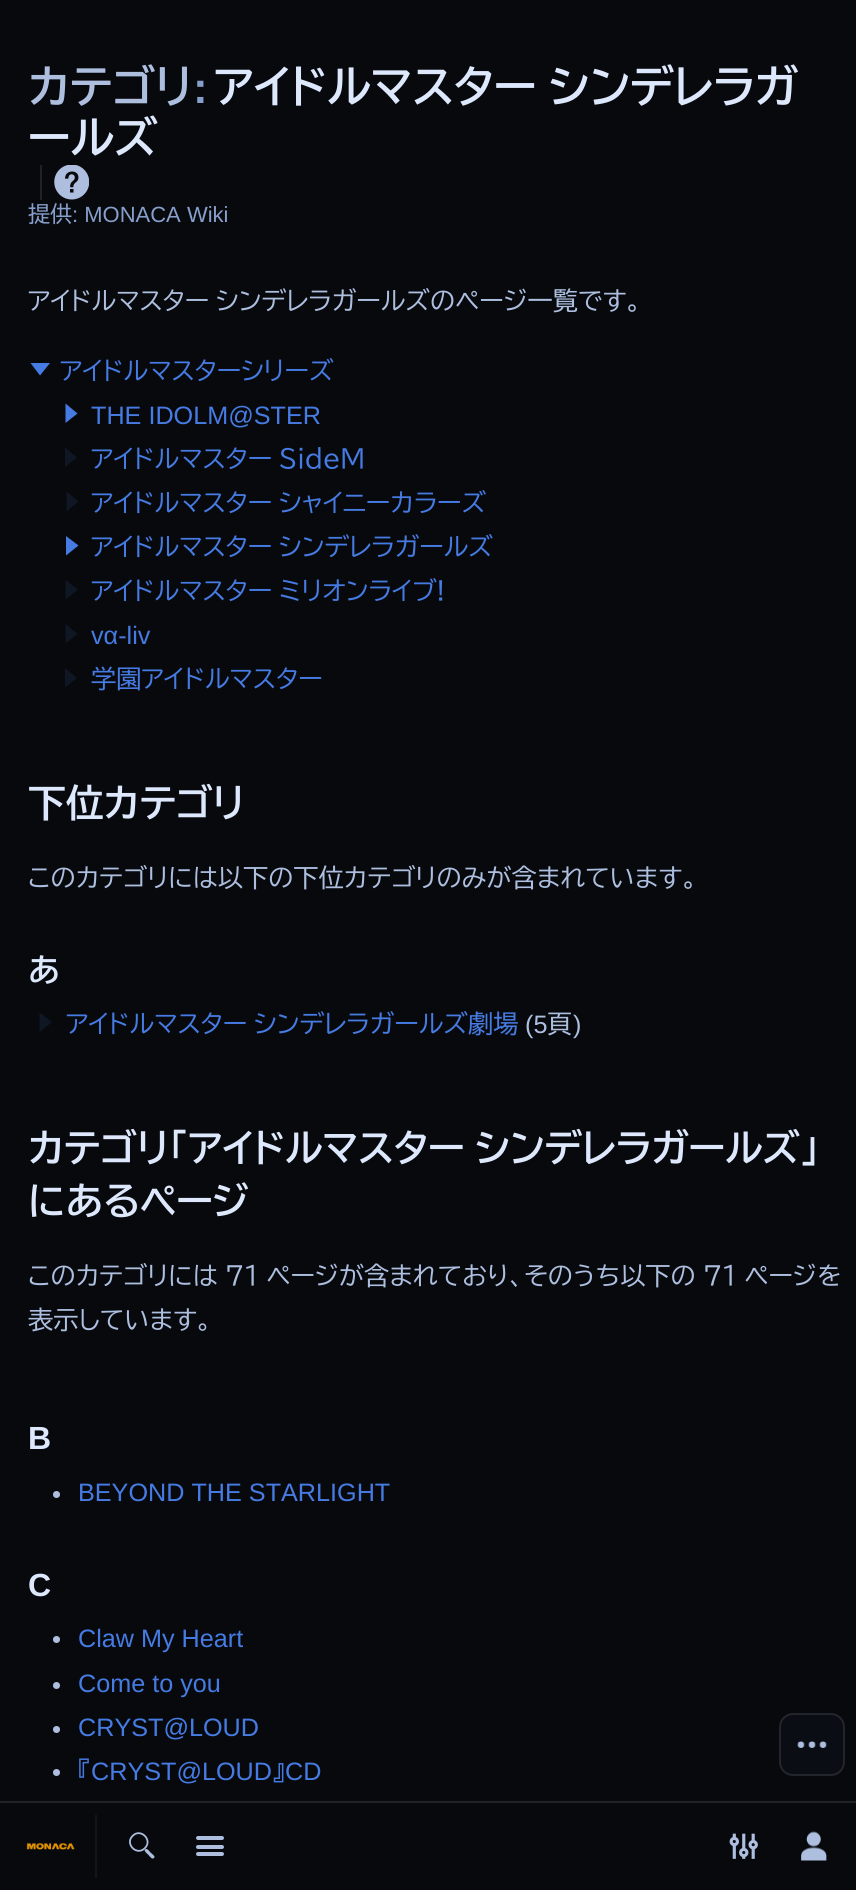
import math
import cairo


def use_color(cr, r, g, b):
  cr.set_source_rgb(r / 255, g / 255, b / 255)

def text(cr, x, y, s, family, size, color, bold=False, italic=False):
  cr.select_font_face(family, cairo.FONT_SLANT_ITALIC if italic else cairo.FONT_SLANT_NORMAL, cairo.FONT_WEIGHT_BOLD if bold else cairo.FONT_WEIGHT_NORMAL)
  cr.set_font_size(size)
  use_color(cr, *color)
  cr.move_to(x, y)
  cr.show_text(s)

def spaced_text(cr, x, y, s, letter, word):
  cr.move_to(x, y)
  for ch in s:
    cr.show_text(ch)
    cr.rel_move_to(letter + word * (ch == ' '), 0)

def box(cr, x, y, w, h, *color):
  use_color(cr, *color)
  cr.rectangle(x, y, w, h)
  cr.fill()

def round_rect(cr, x, y, w, h, r):
  cr.new_sub_path()
  for i, (u, v) in enumerate([(x + w - r, y + h - r), (x + r, y + h - r), (x + r, y + r), (x + w - r, y + r)]):
    cr.arc(u, v, r, i * math.pi / 2, (i + 1) * math.pi / 2)
  cr.close_path()

def picture(cr, path, x, y, w, h):
  cr.save()
  cr.set_source_surface(cairo.ImageSurface.create_from_png(path), x, y)
  cr.rectangle(x, y, w, h)
  cr.fill()
  cr.restore()

def draw(cr):
  use_color(cr, 7, 9, 13)
  cr.paint()
  box(cr, 40, 165, 2, 35, 32, 34, 37)
  picture(cr, "img_01.png", 54, 165, 35, 35)
  use_color(cr, 10, 13, 20)
  round_rect(cr, 779, 1713, 66, 63, 14)
  cr.fill()
  round_rect(cr, 780, 1714, 64, 61, 13)
  cr.set_source_rgba(1, 1, 1, 0.1)
  cr.stroke()
  picture(cr, "img_02.png", 797, 1741, 30, 7)
  use_color(cr, 70, 123, 227)
  cr.new_path()
  cr.move_to(40, 375.5)
  cr.line_to(30.5, 363)
  cr.line_to(50, 363)
  cr.close_path()
  cr.move_to(77.5, 413.5)
  cr.line_to(65.5, 423)
  cr.line_to(65.5, 403.5)
  cr.close_path()
  cr.fill()
  use_color(cr, 15, 22, 36)
  cr.new_path()
  cr.move_to(77, 457.5)
  cr.line_to(65, 467)
  cr.line_to(65, 447.5)
  cr.close_path()
  cr.fill()
  cr.new_path()
  cr.move_to(78.5, 501.5)
  cr.line_to(66.5, 511.5)
  cr.line_to(66.5, 491.5)
  cr.close_path()
  cr.fill()
  use_color(cr, 70, 123, 227)
  cr.new_path()
  cr.move_to(78.5, 545.5)
  cr.line_to(66, 555.5)
  cr.line_to(66, 536)
  cr.close_path()
  cr.fill()
  use_color(cr, 15, 22, 36)
  cr.new_path()
  cr.move_to(78, 589.5)
  cr.line_to(65.5, 599.5)
  cr.line_to(65.5, 580)
  cr.close_path()
  cr.fill()
  cr.new_path()
  cr.move_to(77.5, 634)
  cr.line_to(65.5, 643.5)
  cr.line_to(65.5, 624)
  cr.close_path()
  cr.fill()
  cr.new_path()
  cr.move_to(77, 678)
  cr.line_to(65, 687.5)
  cr.line_to(65, 668)
  cr.close_path()
  cr.fill()
  cr.new_path()
  cr.move_to(52, 1022)
  cr.line_to(39.5, 1032)
  cr.line_to(39.5, 1012.5)
  cr.close_path()
  cr.fill()
  use_color(cr, 173, 190, 223)
  cr.arc(56.5, 1494.5, 3.5, 0, 2 * math.pi)
  cr.fill()
  cr.arc(56.5, 1639.5, 3.5, 0, 2 * math.pi)
  cr.fill()
  cr.arc(56.5, 1685.5, 3.5, 0, 2 * math.pi)
  cr.fill()
  cr.arc(56.5, 1729.5, 3.5, 0, 2 * math.pi)
  cr.fill()
  cr.arc(56.5, 1772.5, 3.5, 0, 2 * math.pi)
  cr.fill()
  box(cr, 0, 1801, 856, 2, 32, 34, 37)
  box(cr, 95, 1815, 2, 63, 19, 21, 25)
  picture(cr, "img_03.png", 26, 1843, 49, 7)
  use_color(cr, 173, 190, 223)
  cr.new_path()
  cr.move_to(145, 1849.5)
  cr.curve_to(147, 1847.5, 149.5, 1851.5, 150.5, 1852.5)
  cr.curve_to(151.5, 1853.5, 156, 1856.5, 154, 1858)
  cr.curve_to(152, 1860, 149.5, 1856, 148.5, 1855)
  cr.curve_to(147.5, 1854, 143.5, 1851, 145, 1849.5)
  cr.close_path()
  cr.fill()
  cr.new_path()
  cr.move_to(132.5, 1836)
  cr.curve_to(140.5, 1827.5, 153, 1840, 145, 1848)
  cr.curve_to(137, 1856.5, 124.5, 1844, 132.5, 1836)
  cr.close_path()
  cr.set_line_width(1.8)
  cr.stroke()
  round_rect(cr, 196, 1836, 28, 4, 2)
  cr.fill()
  round_rect(cr, 196, 1845, 28, 4, 2)
  cr.fill()
  round_rect(cr, 196, 1852, 28, 4, 2)
  cr.fill()
  picture(cr, "img_04.png", 729, 1833, 29, 26)
  picture(cr, "img_05.png", 801, 1831, 26, 30)
  text(cr, 28, 103, "カテゴリ", "BIZ UDPGothic", 44.1, (173, 190, 223), bold=True)
  text(cr, 193, 103, ":", "Liberation Sans", 44.1, (135, 159, 203), bold=True)
  cr.select_font_face("BIZ UDPGothic", cairo.FONT_SLANT_NORMAL, cairo.FONT_WEIGHT_BOLD)
  use_color(cr, 221, 232, 253)
  spaced_text(cr, 214, 103, "アイドルマスター シンデレラガ", 0, -2)
  text(cr, 28, 154, "ールズ", "BIZ UDPGothic", 44.1, (221, 232, 253), bold=True)
  text(cr, 28, 222, "提供", "BIZ UDPGothic", 22, (135, 159, 203))
  text(cr, 72, 222, ": MONACA Wiki", "Liberation Sans", 22, (135, 159, 203))
  cr.select_font_face("BIZ UDPGothic")
  cr.set_font_size(25.2)
  use_color(cr, 173, 190, 223)
  spaced_text(cr, 28, 310, "アイドルマスター シンデレラガールズのページ一覧です。", 0, -1.5)
  text(cr, 60, 380, "アイドルマスターシリーズ", "BIZ UDPGothic", 25.2, (70, 123, 227))
  text(cr, 91, 424, "THE IDOLM@STER", "Liberation Sans", 25.2, (70, 123, 227))
  cr.select_font_face("BIZ UDPGothic")
  spaced_text(cr, 91, 468, "アイドルマスター SideM", 0, -1.5)
  spaced_text(cr, 91, 512, "アイドルマスター シャイニーカラーズ", 0, -1.5)
  spaced_text(cr, 91, 556, "アイドルマスター シンデレラガールズ", 0, -1.5)
  spaced_text(cr, 91, 600, "アイドルマスター ミリオンライブ!", 0, -1.5)
  text(cr, 91, 644, "vα-liv", "Liberation Sans", 25.2, (70, 123, 227))
  text(cr, 91, 688, "学園アイドルマスター", "BIZ UDPGothic", 25.2, (70, 123, 227))
  text(cr, 28, 817, "下位カテゴリ", "BIZ UDPGothic", 37.8, (221, 232, 253), bold=True)
  text(cr, 28, 887, "このカテゴリには以下の下位カテゴリのみが含まれています。", "BIZ UDPGothic", 25.2, (173, 190, 223))
  text(cr, 28, 982, "あ", "BIZ UDPGothic", 32, (221, 232, 253), bold=True)
  cr.select_font_face("BIZ UDPGothic")
  cr.set_font_size(25.2)
  use_color(cr, 70, 123, 227)
  spaced_text(cr, 66, 1033, "アイドルマスター シンデレラガールズ劇場", 0, -1.5)
  text(cr, 525, 1033, "(5", "Liberation Sans", 25.2, (173, 190, 223))
  text(cr, 547, 1033, "頁", "BIZ UDPGothic", 25.2, (173, 190, 223))
  text(cr, 573, 1033, ")", "Liberation Sans", 25.2, (173, 190, 223))
  cr.select_font_face("BIZ UDPGothic", cairo.FONT_SLANT_NORMAL, cairo.FONT_WEIGHT_BOLD)
  cr.set_font_size(37.8)
  use_color(cr, 221, 232, 253)
  spaced_text(cr, 28, 1162, "カテゴリ「アイドルマスター シンデレラガールズ」", 0, -2)
  text(cr, 28, 1215, "にあるページ", "BIZ UDPGothic", 37.8, (221, 232, 253), bold=True)
  cr.select_font_face("BIZ UDPGothic")
  cr.set_font_size(25.2)
  use_color(cr, 173, 190, 223)
  spaced_text(cr, 28, 1285, "このカテゴリには 71 ページが含まれており、そのうち以下の 71 ページを", 0, -1.5)
  text(cr, 28, 1329, "表示しています。", "BIZ UDPGothic", 25.2, (173, 190, 223))
  text(cr, 28, 1449, "B", "Liberation Sans", 32, (221, 232, 253), bold=True)
  text(cr, 78, 1501, "BEYOND THE STARLIGHT", "Liberation Sans", 25.2, (70, 123, 227))
  text(cr, 28, 1596, "C", "Liberation Sans", 32, (221, 232, 253), bold=True)
  text(cr, 78, 1647, "Claw My Heart", "Liberation Sans", 25.2, (70, 123, 227))
  text(cr, 78, 1692, "Come to you", "Liberation Sans", 25.2, (70, 123, 227))
  text(cr, 78, 1736, "CRYST@LOUD", "Liberation Sans", 25.2, (70, 123, 227))
  text(cr, 78, 1780, "『", "BIZ UDPGothic", 25.2, (70, 123, 227))
  text(cr, 91, 1780, "CRYST@LOUD", "Liberation Sans", 25.2, (70, 123, 227))
  text(cr, 272, 1780, "』", "BIZ UDPGothic", 25.2, (70, 123, 227))
  text(cr, 285, 1780, "CD", "Liberation Sans", 25.2, (70, 123, 227))


surface = cairo.ImageSurface(cairo.FORMAT_RGB24, 856, 1890)
cr = cairo.Context(surface)
options = cairo.FontOptions()
options.set_hint_metrics(cairo.HINT_METRICS_OFF)
options.set_hint_style(cairo.HINT_STYLE_NONE)
cr.set_font_options(options)
cr.set_miter_limit(4)
draw(cr)
surface.write_to_png("out.png")
